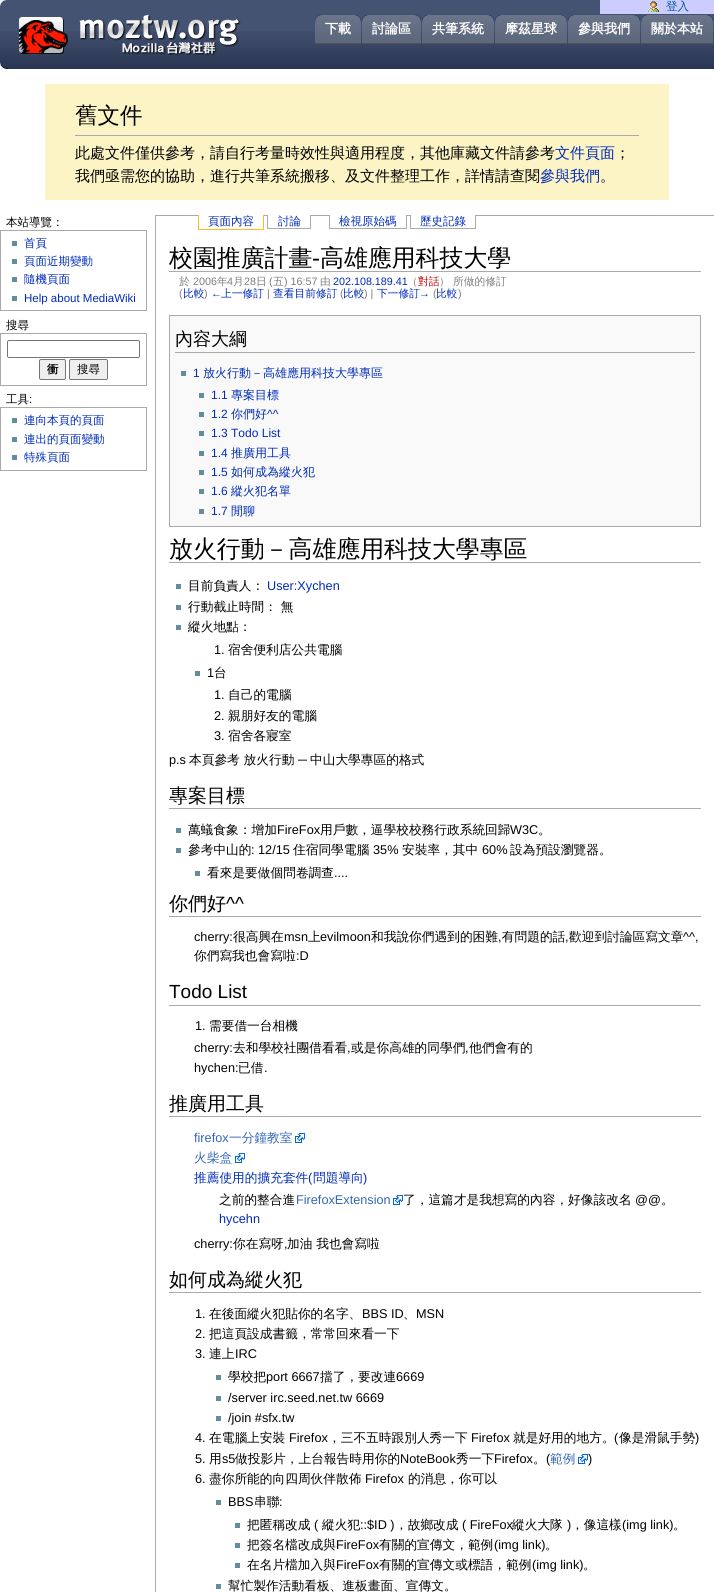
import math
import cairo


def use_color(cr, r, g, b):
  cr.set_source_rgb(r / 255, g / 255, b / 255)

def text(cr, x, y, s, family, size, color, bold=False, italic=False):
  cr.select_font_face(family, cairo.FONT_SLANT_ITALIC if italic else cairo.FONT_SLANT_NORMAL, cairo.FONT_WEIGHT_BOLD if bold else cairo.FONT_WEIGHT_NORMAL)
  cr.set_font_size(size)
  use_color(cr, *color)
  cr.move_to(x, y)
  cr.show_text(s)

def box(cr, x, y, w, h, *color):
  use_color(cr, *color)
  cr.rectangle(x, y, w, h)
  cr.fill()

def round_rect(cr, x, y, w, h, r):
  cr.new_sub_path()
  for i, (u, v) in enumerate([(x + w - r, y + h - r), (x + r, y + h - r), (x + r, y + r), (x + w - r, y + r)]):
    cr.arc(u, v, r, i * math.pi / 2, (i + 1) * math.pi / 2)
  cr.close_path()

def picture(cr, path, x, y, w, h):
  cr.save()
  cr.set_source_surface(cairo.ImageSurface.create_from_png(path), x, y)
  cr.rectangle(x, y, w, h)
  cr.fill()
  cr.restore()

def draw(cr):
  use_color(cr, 255, 255, 255)
  cr.paint()
  box(cr, 0, 0, 714, 31, 69, 83, 114)
  box(cr, 600, 0, 114, 14, 204, 204, 255)
  picture(cr, "img_01.png", 648, 1, 11, 11)
  cr.rectangle(0.5, 230.5, 146, 80)
  use_color(cr, 170, 170, 170)
  cr.set_line_width(1)
  cr.stroke()
  box(cr, 12, 241, 5, 5, 99, 140, 156)
  box(cr, 12, 259, 5, 5, 99, 140, 156)
  box(cr, 12, 277, 5, 5, 99, 140, 156)
  box(cr, 12, 296, 5, 5, 99, 140, 156)
  cr.rectangle(0.5, 333.5, 146, 52)
  use_color(cr, 170, 170, 170)
  cr.stroke()
  round_rect(cr, 7.5, 340.5, 132, 17, 1.5)
  use_color(cr, 118, 118, 118)
  cr.stroke()
  use_color(cr, 239, 239, 239)
  round_rect(cr, 39.5, 359.5, 26, 20, 1.5)
  cr.fill_preserve()
  use_color(cr, 118, 118, 118)
  cr.stroke()
  use_color(cr, 239, 239, 239)
  round_rect(cr, 69.5, 359.5, 38, 20, 1.5)
  cr.fill_preserve()
  use_color(cr, 118, 118, 118)
  cr.stroke()
  cr.rectangle(0.5, 407.5, 146, 63)
  use_color(cr, 170, 170, 170)
  cr.stroke()
  box(cr, 12, 418, 5, 5, 99, 140, 156)
  box(cr, 12, 437, 5, 5, 99, 140, 156)
  box(cr, 12, 455, 5, 5, 99, 140, 156)
  box(cr, 155, 215, 559, 1, 170, 170, 170)
  box(cr, 155, 215, 1, 1377, 170, 170, 170)
  box(cr, 199, 215, 64, 1, 255, 255, 255)
  box(cr, 263, 215, 1, 15, 250, 189, 35)
  box(cr, 198, 229, 66, 1, 250, 189, 35)
  box(cr, 198, 215, 1, 15, 250, 189, 35)
  box(cr, 268, 215, 42, 1, 255, 255, 255)
  box(cr, 310, 215, 1, 14, 170, 170, 170)
  box(cr, 267, 228, 44, 1, 170, 170, 170)
  box(cr, 267, 215, 1, 14, 170, 170, 170)
  box(cr, 330, 215, 76, 1, 255, 255, 255)
  box(cr, 406, 215, 1, 14, 170, 170, 170)
  box(cr, 329, 228, 78, 1, 170, 170, 170)
  box(cr, 329, 215, 1, 14, 170, 170, 170)
  box(cr, 411, 215, 64, 1, 255, 255, 255)
  box(cr, 475, 215, 1, 14, 170, 170, 170)
  box(cr, 410, 228, 66, 1, 170, 170, 170)
  box(cr, 410, 215, 1, 14, 170, 170, 170)
  box(cr, 169, 271, 532, 1, 170, 170, 170)
  use_color(cr, 249, 249, 249)
  cr.rectangle(169.5, 315.5, 531, 211)
  cr.fill_preserve()
  use_color(cr, 170, 170, 170)
  cr.stroke()
  box(cr, 175, 352, 520, 1, 170, 170, 170)
  box(cr, 181, 371, 5, 5, 99, 140, 156)
  box(cr, 199, 393, 5, 5, 99, 140, 156)
  box(cr, 199, 412, 5, 5, 99, 140, 156)
  box(cr, 199, 431, 5, 5, 99, 140, 156)
  box(cr, 199, 451, 5, 5, 99, 140, 156)
  box(cr, 199, 470, 5, 5, 99, 140, 156)
  box(cr, 199, 489, 5, 5, 99, 140, 156)
  box(cr, 199, 509, 5, 5, 99, 140, 156)
  box(cr, 169, 562, 532, 1, 170, 170, 170)
  box(cr, 176, 584, 5, 5, 99, 140, 156)
  box(cr, 176, 605, 5, 5, 99, 140, 156)
  box(cr, 176, 625, 5, 5, 99, 140, 156)
  box(cr, 195, 671, 5, 5, 99, 140, 156)
  box(cr, 169, 808, 532, 1, 170, 170, 170)
  box(cr, 176, 828, 5, 5, 99, 140, 156)
  box(cr, 176, 848, 5, 5, 99, 140, 156)
  box(cr, 195, 871, 5, 5, 99, 140, 156)
  box(cr, 169, 916, 532, 1, 170, 170, 170)
  box(cr, 169, 1005, 532, 1, 170, 170, 170)
  box(cr, 169, 1116, 532, 1, 170, 170, 170)
  picture(cr, "img_02.png", 295, 1133, 10, 10)
  picture(cr, "img_02.png", 235, 1153, 10, 10)
  picture(cr, "img_02.png", 393, 1195, 10, 10)
  box(cr, 169, 1292, 532, 1, 170, 170, 170)
  box(cr, 216, 1375, 5, 5, 99, 140, 156)
  box(cr, 216, 1396, 5, 5, 99, 140, 156)
  box(cr, 216, 1416, 5, 5, 99, 140, 156)
  picture(cr, "img_02.png", 578, 1454, 10, 10)
  box(cr, 216, 1500, 5, 5, 99, 140, 156)
  box(cr, 235, 1523, 5, 5, 99, 140, 156)
  box(cr, 235, 1543, 5, 5, 99, 140, 156)
  box(cr, 235, 1563, 5, 5, 99, 140, 156)
  box(cr, 216, 1584, 5, 5, 99, 140, 156)
  picture(cr, "img_03.png", 0, 31, 714, 38)
  picture(cr, "img_04.png", 0, 0, 6, 7)
  picture(cr, "img_05.png", 19, 14, 222, 42)
  picture(cr, "img_06.png", 355, 15, 6, 28)
  box(cr, 315, 43, 46, 1, 81, 83, 88)
  picture(cr, "img_07.png", 315, 15, 40, 28)
  picture(cr, "img_06.png", 415, 15, 6, 28)
  box(cr, 362, 43, 59, 1, 81, 83, 88)
  picture(cr, "img_08.png", 362, 15, 53, 28)
  picture(cr, "img_06.png", 488, 15, 6, 28)
  box(cr, 422, 43, 72, 1, 81, 83, 88)
  picture(cr, "img_09.png", 422, 15, 66, 28)
  picture(cr, "img_06.png", 561, 15, 6, 28)
  box(cr, 495, 43, 72, 1, 81, 83, 88)
  picture(cr, "img_09.png", 495, 15, 66, 28)
  picture(cr, "img_06.png", 634, 15, 6, 28)
  box(cr, 568, 43, 72, 1, 81, 83, 88)
  picture(cr, "img_09.png", 568, 15, 66, 28)
  picture(cr, "img_06.png", 707, 15, 6, 28)
  box(cr, 641, 43, 72, 1, 81, 83, 88)
  picture(cr, "img_09.png", 641, 15, 66, 28)
  box(cr, 45, 84, 624, 116, 252, 244, 196)
  box(cr, 75, 135, 564, 1, 170, 170, 170)
  text(cr, 666, 10, "登入", "WenQuanYi Zen Hei Medium", 11.5, (0, 88, 150))
  text(cr, 6, 226, "本站導覽：", "WenQuanYi Zen Hei Medium", 11.5, (0, 0, 0))
  text(cr, 24, 247, "首頁", "WenQuanYi Zen Hei Medium", 11.5, (0, 43, 184))
  text(cr, 24, 265, "頁面近期變動", "WenQuanYi Zen Hei Medium", 11.5, (0, 43, 184))
  text(cr, 24, 283, "隨機頁面", "WenQuanYi Zen Hei Medium", 11.5, (0, 43, 184))
  text(cr, 24, 302, "Help about MediaWiki", "Liberation Sans", 11.5, (0, 43, 184))
  text(cr, 6, 329, "搜尋", "WenQuanYi Zen Hei Medium", 11.5, (0, 0, 0))
  text(cr, 47, 373, "衝", "WenQuanYi Zen Hei", 11.5, (0, 0, 0), bold=True)
  text(cr, 77, 373, "搜尋", "WenQuanYi Zen Hei Medium", 11.5, (0, 0, 0))
  text(cr, 6, 403, "工具", "WenQuanYi Zen Hei Medium", 11.5, (0, 0, 0))
  text(cr, 29, 403, ":", "Liberation Sans", 11.5, (0, 0, 0))
  text(cr, 24, 424, "連向本頁的頁面", "WenQuanYi Zen Hei Medium", 11.5, (0, 43, 184))
  text(cr, 24, 443, "連出的頁面變動", "WenQuanYi Zen Hei Medium", 11.5, (0, 43, 184))
  text(cr, 24, 461, "特殊頁面", "WenQuanYi Zen Hei Medium", 11.5, (0, 43, 184))
  text(cr, 208, 225, "頁面內容", "WenQuanYi Zen Hei Medium", 11.5, (0, 43, 184))
  text(cr, 278, 225, "討論", "WenQuanYi Zen Hei Medium", 11.5, (0, 43, 184))
  text(cr, 339, 225, "檢視原始碼", "WenQuanYi Zen Hei Medium", 11.5, (0, 43, 184))
  text(cr, 420, 225, "歷史記錄", "WenQuanYi Zen Hei Medium", 11.5, (0, 43, 184))
  text(cr, 169, 266, "校園推廣計畫", "WenQuanYi Zen Hei Medium", 23.9, (0, 0, 0))
  text(cr, 312, 266, "-", "Liberation Sans", 23.9, (0, 0, 0))
  text(cr, 320, 266, "高雄應用科技大學", "WenQuanYi Zen Hei Medium", 23.9, (0, 0, 0))
  text(cr, 179, 285, "於", "WenQuanYi Zen Hei Medium", 10.75, (125, 125, 125))
  text(cr, 193, 285, "2006", "Liberation Sans", 10.75, (125, 125, 125))
  text(cr, 217, 285, "年", "WenQuanYi Zen Hei Medium", 10.75, (125, 125, 125))
  text(cr, 227, 285, "4", "Liberation Sans", 10.75, (125, 125, 125))
  text(cr, 233, 285, "月", "WenQuanYi Zen Hei Medium", 10.75, (125, 125, 125))
  text(cr, 244, 285, "28", "Liberation Sans", 10.75, (125, 125, 125))
  text(cr, 256, 285, "日", "WenQuanYi Zen Hei Medium", 10.75, (125, 125, 125))
  text(cr, 269, 285, "(", "Liberation Sans", 10.75, (125, 125, 125))
  text(cr, 273, 285, "五", "WenQuanYi Zen Hei Medium", 10.75, (125, 125, 125))
  text(cr, 284, 285, ") 16:57", "Liberation Sans", 10.75, (125, 125, 125))
  text(cr, 320, 285, "由", "WenQuanYi Zen Hei Medium", 10.75, (125, 125, 125))
  text(cr, 333, 285, "202.108.189.41", "Liberation Sans", 10.75, (0, 43, 184))
  text(cr, 407, 285, "（", "WenQuanYi Zen Hei Medium", 10.75, (125, 125, 125))
  text(cr, 418, 285, "對話", "WenQuanYi Zen Hei Medium", 10.75, (186, 0, 0))
  text(cr, 439, 285, "） 所做的修訂", "WenQuanYi Zen Hei Medium", 10.75, (125, 125, 125))
  text(cr, 179, 297, "(", "Liberation Sans", 10.75, (125, 125, 125))
  text(cr, 183, 297, "比較", "WenQuanYi Zen Hei Medium", 10.75, (0, 43, 184))
  text(cr, 204, 297, ")", "Liberation Sans", 10.75, (125, 125, 125))
  text(cr, 211, 297, "←", "Liberation Sans", 10.75, (0, 43, 184))
  text(cr, 221, 297, "上一修訂", "WenQuanYi Zen Hei Medium", 10.75, (0, 43, 184))
  text(cr, 267, 297, "|", "Liberation Sans", 10.75, (125, 125, 125))
  text(cr, 273, 297, "查看目前修訂", "WenQuanYi Zen Hei Medium", 10.75, (0, 43, 184))
  text(cr, 340, 297, "(", "Liberation Sans", 10.75, (125, 125, 125))
  text(cr, 343, 297, "比較", "WenQuanYi Zen Hei Medium", 10.75, (0, 43, 184))
  text(cr, 364, 297, ") |", "Liberation Sans", 10.75, (125, 125, 125))
  text(cr, 377, 297, "下一修訂", "WenQuanYi Zen Hei Medium", 10.75, (0, 43, 184))
  text(cr, 419, 297, "→", "Liberation Sans", 10.75, (0, 43, 184))
  text(cr, 433, 297, "(", "Liberation Sans", 10.75, (125, 125, 125))
  text(cr, 436, 297, "比較", "WenQuanYi Zen Hei Medium", 10.75, (0, 43, 184))
  text(cr, 458, 297, ")", "Liberation Sans", 10.75, (125, 125, 125))
  text(cr, 175, 345, "內容大綱", "WenQuanYi Zen Hei Medium", 18, (0, 0, 0))
  text(cr, 193, 377, "1", "Liberation Sans", 12, (0, 43, 184))
  text(cr, 203, 377, "放火行動－高雄應用科技大學專區", "WenQuanYi Zen Hei Medium", 12, (0, 43, 184))
  text(cr, 211, 399, "1.1", "Liberation Sans", 12, (0, 43, 184))
  text(cr, 231, 399, "專案目標", "WenQuanYi Zen Hei Medium", 12, (0, 43, 184))
  text(cr, 211, 418, "1.2", "Liberation Sans", 12, (0, 43, 184))
  text(cr, 231, 418, "你們好", "WenQuanYi Zen Hei Medium", 12, (0, 43, 184))
  text(cr, 267, 418, "^^", "Liberation Sans", 12, (0, 43, 184))
  text(cr, 211, 437, "1.3 Todo List", "Liberation Sans", 12, (0, 43, 184))
  text(cr, 211, 457, "1.4", "Liberation Sans", 12, (0, 43, 184))
  text(cr, 231, 457, "推廣用工具", "WenQuanYi Zen Hei Medium", 12, (0, 43, 184))
  text(cr, 211, 476, "1.5", "Liberation Sans", 12, (0, 43, 184))
  text(cr, 231, 476, "如何成為縱火犯", "WenQuanYi Zen Hei Medium", 12, (0, 43, 184))
  text(cr, 211, 495, "1.6", "Liberation Sans", 12, (0, 43, 184))
  text(cr, 231, 495, "縱火犯名單", "WenQuanYi Zen Hei Medium", 12, (0, 43, 184))
  text(cr, 211, 515, "1.7", "Liberation Sans", 12, (0, 43, 184))
  text(cr, 231, 515, "閒聊", "WenQuanYi Zen Hei Medium", 12, (0, 43, 184))
  text(cr, 169, 557, "放火行動－高雄應用科技大學專區", "WenQuanYi Zen Hei Medium", 23.9, (0, 0, 0))
  text(cr, 188, 590, "目前負責人：", "WenQuanYi Zen Hei Medium", 12.7, (0, 0, 0))
  text(cr, 267, 590, "User:Xychen", "Liberation Sans", 12.7, (0, 43, 184))
  text(cr, 188, 611, "行動截止時間： 無", "WenQuanYi Zen Hei Medium", 12.7, (0, 0, 0))
  text(cr, 188, 631, "縱火地點：", "WenQuanYi Zen Hei Medium", 12.7, (0, 0, 0))
  text(cr, 214, 654, "1.", "Liberation Sans", 12.7, (0, 0, 0))
  text(cr, 228, 654, "宿舍便利店公共電腦", "WenQuanYi Zen Hei Medium", 12.7, (0, 0, 0))
  text(cr, 207, 677, "1", "Liberation Sans", 12.7, (0, 0, 0))
  text(cr, 214, 677, "台", "WenQuanYi Zen Hei Medium", 12.7, (0, 0, 0))
  text(cr, 214, 699, "1.", "Liberation Sans", 12.7, (0, 0, 0))
  text(cr, 228, 699, "自己的電腦", "WenQuanYi Zen Hei Medium", 12.7, (0, 0, 0))
  text(cr, 214, 720, "2.", "Liberation Sans", 12.7, (0, 0, 0))
  text(cr, 228, 720, "親朋好友的電腦", "WenQuanYi Zen Hei Medium", 12.7, (0, 0, 0))
  text(cr, 214, 740, "3.", "Liberation Sans", 12.7, (0, 0, 0))
  text(cr, 228, 740, "宿舍各寢室", "WenQuanYi Zen Hei Medium", 12.7, (0, 0, 0))
  text(cr, 169, 764, "p.s", "Liberation Sans", 12.7, (0, 0, 0))
  text(cr, 189, 764, "本頁參考 放火行動", "WenQuanYi Zen Hei Medium", 12.7, (0, 0, 0))
  text(cr, 298, 764, "─", "Liberation Sans", 12.7, (0, 0, 0))
  text(cr, 310, 764, "中山大學專區的格式", "WenQuanYi Zen Hei Medium", 12.7, (0, 0, 0))
  text(cr, 169, 802, "專案目標", "WenQuanYi Zen Hei Medium", 19, (0, 0, 0))
  text(cr, 188, 834, "萬蟻食象：增加", "WenQuanYi Zen Hei Medium", 12.7, (0, 0, 0))
  text(cr, 277, 834, "FireFox", "Liberation Sans", 12.7, (0, 0, 0))
  text(cr, 320, 834, "用戶數，逼學校校務行政系統回歸", "WenQuanYi Zen Hei Medium", 12.7, (0, 0, 0))
  text(cr, 510, 834, "W3C", "Liberation Sans", 12.7, (0, 0, 0))
  text(cr, 538, 834, "。", "WenQuanYi Zen Hei Medium", 12.7, (0, 0, 0))
  text(cr, 188, 854, "參考中山的", "WenQuanYi Zen Hei Medium", 12.7, (0, 0, 0))
  text(cr, 251, 854, ": 12/15", "Liberation Sans", 12.7, (0, 0, 0))
  text(cr, 293, 854, "住宿同學電腦", "WenQuanYi Zen Hei Medium", 12.7, (0, 0, 0))
  text(cr, 373, 854, "35%", "Liberation Sans", 12.7, (0, 0, 0))
  text(cr, 402, 854, "安裝率，其中", "WenQuanYi Zen Hei Medium", 12.7, (0, 0, 0))
  text(cr, 482, 854, "60%", "Liberation Sans", 12.7, (0, 0, 0))
  text(cr, 510, 854, "設為預設瀏覽器。", "WenQuanYi Zen Hei Medium", 12.7, (0, 0, 0))
  text(cr, 207, 877, "看來是要做個問卷調查", "WenQuanYi Zen Hei Medium", 12.7, (0, 0, 0))
  text(cr, 334, 877, "....", "Liberation Sans", 12.7, (0, 0, 0))
  text(cr, 169, 910, "你們好", "WenQuanYi Zen Hei Medium", 19, (0, 0, 0))
  text(cr, 226, 910, "^^", "Liberation Sans", 19, (0, 0, 0))
  text(cr, 194, 941, "cherry:", "Liberation Sans", 12.7, (0, 0, 0))
  text(cr, 233, 941, "很高興在", "WenQuanYi Zen Hei Medium", 12.7, (0, 0, 0))
  text(cr, 284, 941, "msn", "Liberation Sans", 12.7, (0, 0, 0))
  text(cr, 308, 941, "上", "WenQuanYi Zen Hei Medium", 12.7, (0, 0, 0))
  text(cr, 320, 941, "evilmoon", "Liberation Sans", 12.7, (0, 0, 0))
  text(cr, 371, 941, "和我說你們遇到的困難 有問題的話 歡迎到討論區寫文章", "WenQuanYi Zen Hei Medium", 12.7, (0, 0, 0))
  text(cr, 683, 941, "^^,", "Liberation Sans", 12.7, (0, 0, 0))
  text(cr, 498, 941, ",", "Liberation Sans", 12.7, (0, 0, 0))
  text(cr, 565, 941, ",", "Liberation Sans", 12.7, (0, 0, 0))
  text(cr, 194, 960, "你們寫我也會寫啦", "WenQuanYi Zen Hei Medium", 12.7, (0, 0, 0))
  text(cr, 296, 960, ":D", "Liberation Sans", 12.7, (0, 0, 0))
  text(cr, 169, 998, "Todo List", "Liberation Sans", 19, (0, 0, 0))
  text(cr, 195, 1030, "1.", "Liberation Sans", 12.7, (0, 0, 0))
  text(cr, 209, 1030, "需要借一台相機", "WenQuanYi Zen Hei Medium", 12.7, (0, 0, 0))
  text(cr, 194, 1052, "cherry:", "Liberation Sans", 12.7, (0, 0, 0))
  text(cr, 233, 1052, "去和學校社團借看看 或是你高雄的同學們 他們會有的", "WenQuanYi Zen Hei Medium", 12.7, (0, 0, 0))
  text(cr, 347, 1052, ",", "Liberation Sans", 12.7, (0, 0, 0))
  text(cr, 465, 1052, ",", "Liberation Sans", 12.7, (0, 0, 0))
  text(cr, 194, 1072, "hychen:", "Liberation Sans", 12.7, (0, 0, 0))
  text(cr, 238, 1072, "已借", "WenQuanYi Zen Hei Medium", 12.7, (0, 0, 0))
  text(cr, 264, 1072, ".", "Liberation Sans", 12.7, (0, 0, 0))
  text(cr, 169, 1110, "推廣用工具", "WenQuanYi Zen Hei Medium", 19, (0, 0, 0))
  text(cr, 194, 1142, "firefox", "Liberation Sans", 12.7, (51, 102, 187))
  text(cr, 229, 1142, "一分鐘教室", "WenQuanYi Zen Hei Medium", 12.7, (51, 102, 187))
  text(cr, 194, 1162, "火柴盒", "WenQuanYi Zen Hei Medium", 12.7, (51, 102, 187))
  text(cr, 194, 1182, "推薦使用的擴充套件", "WenQuanYi Zen Hei Medium", 12.7, (0, 43, 184))
  text(cr, 308, 1182, "(", "Liberation Sans", 12.7, (0, 43, 184))
  text(cr, 313, 1182, "問題導向", "WenQuanYi Zen Hei Medium", 12.7, (0, 43, 184))
  text(cr, 363, 1182, ")", "Liberation Sans", 12.7, (0, 43, 184))
  text(cr, 219, 1204, "之前的整合進", "WenQuanYi Zen Hei Medium", 12.7, (0, 0, 0))
  text(cr, 296, 1204, "FirefoxExtension", "Liberation Sans", 12.7, (51, 102, 187))
  text(cr, 403, 1204, "了，這篇才是我想寫的內容，好像該改名", "WenQuanYi Zen Hei Medium", 12.7, (0, 0, 0))
  text(cr, 635, 1204, "@@", "Liberation Sans", 12.7, (0, 0, 0))
  text(cr, 661, 1204, "。", "WenQuanYi Zen Hei Medium", 12.7, (0, 0, 0))
  text(cr, 219, 1223, "hycehn", "Liberation Sans", 12.7, (0, 43, 184))
  text(cr, 194, 1248, "cherry:", "Liberation Sans", 12.7, (0, 0, 0))
  text(cr, 233, 1248, "你在寫呀", "WenQuanYi Zen Hei Medium", 12.7, (0, 0, 0))
  text(cr, 284, 1248, ",", "Liberation Sans", 12.7, (0, 0, 0))
  text(cr, 287, 1248, "加油 我也會寫啦", "WenQuanYi Zen Hei Medium", 12.7, (0, 0, 0))
  text(cr, 169, 1286, "如何成為縱火犯", "WenQuanYi Zen Hei Medium", 19, (0, 0, 0))
  text(cr, 195, 1318, "1.", "Liberation Sans", 12.7, (0, 0, 0))
  text(cr, 209, 1318, "在後面縱火犯貼你的名字、", "WenQuanYi Zen Hei Medium", 12.7, (0, 0, 0))
  text(cr, 362, 1318, "BBS ID", "Liberation Sans", 12.7, (0, 0, 0))
  text(cr, 403, 1318, "、", "WenQuanYi Zen Hei Medium", 12.7, (0, 0, 0))
  text(cr, 416, 1318, "MSN", "Liberation Sans", 12.7, (0, 0, 0))
  text(cr, 195, 1338, "2.", "Liberation Sans", 12.7, (0, 0, 0))
  text(cr, 209, 1338, "把這頁設成書籤，常常回來看一下", "WenQuanYi Zen Hei Medium", 12.7, (0, 0, 0))
  text(cr, 195, 1358, "3.", "Liberation Sans", 12.7, (0, 0, 0))
  text(cr, 209, 1358, "連上", "WenQuanYi Zen Hei Medium", 12.7, (0, 0, 0))
  text(cr, 235, 1358, "IRC", "Liberation Sans", 12.7, (0, 0, 0))
  text(cr, 228, 1381, "學校把", "WenQuanYi Zen Hei Medium", 12.7, (0, 0, 0))
  text(cr, 266, 1381, "port 6667", "Liberation Sans", 12.7, (0, 0, 0))
  text(cr, 320, 1381, "擋了，要改連", "WenQuanYi Zen Hei Medium", 12.7, (0, 0, 0))
  text(cr, 396, 1381, "6669", "Liberation Sans", 12.7, (0, 0, 0))
  text(cr, 228, 1402, "/server irc.seed.net.tw 6669", "Liberation Sans", 12.7, (0, 0, 0))
  text(cr, 228, 1422, "/join #sfx.tw", "Liberation Sans", 12.7, (0, 0, 0))
  text(cr, 195, 1442, "4.", "Liberation Sans", 12.7, (0, 0, 0))
  text(cr, 209, 1442, "在電腦上安裝", "WenQuanYi Zen Hei Medium", 12.7, (0, 0, 0))
  text(cr, 289, 1442, "Firefox", "Liberation Sans", 12.7, (0, 0, 0))
  text(cr, 328, 1442, "，三不五時跟別人秀一下", "WenQuanYi Zen Hei Medium", 12.7, (0, 0, 0))
  text(cr, 471, 1442, "Firefox", "Liberation Sans", 12.7, (0, 0, 0))
  text(cr, 513, 1442, "就是好用的地方。", "WenQuanYi Zen Hei Medium", 12.7, (0, 0, 0))
  text(cr, 614, 1442, "(", "Liberation Sans", 12.7, (0, 0, 0))
  text(cr, 619, 1442, "像是滑鼠手勢", "WenQuanYi Zen Hei Medium", 12.7, (0, 0, 0))
  text(cr, 695, 1442, ")", "Liberation Sans", 12.7, (0, 0, 0))
  text(cr, 195, 1463, "5.", "Liberation Sans", 12.7, (0, 0, 0))
  text(cr, 209, 1463, "用", "WenQuanYi Zen Hei Medium", 12.7, (0, 0, 0))
  text(cr, 222, 1463, "s5", "Liberation Sans", 12.7, (0, 0, 0))
  text(cr, 235, 1463, "做投影片，上台報告時用你的", "WenQuanYi Zen Hei Medium", 12.7, (0, 0, 0))
  text(cr, 400, 1463, "NoteBook", "Liberation Sans", 12.7, (0, 0, 0))
  text(cr, 456, 1463, "秀一下", "WenQuanYi Zen Hei Medium", 12.7, (0, 0, 0))
  text(cr, 494, 1463, "Firefox", "Liberation Sans", 12.7, (0, 0, 0))
  text(cr, 533, 1463, "。", "WenQuanYi Zen Hei Medium", 12.7, (0, 0, 0))
  text(cr, 546, 1463, "(", "Liberation Sans", 12.7, (0, 0, 0))
  text(cr, 550, 1463, "範例", "WenQuanYi Zen Hei Medium", 12.7, (51, 102, 187))
  text(cr, 588, 1463, ")", "Liberation Sans", 12.7, (0, 0, 0))
  text(cr, 195, 1483, "6.", "Liberation Sans", 12.7, (0, 0, 0))
  text(cr, 209, 1483, "盡你所能的向四周伙伴散佈", "WenQuanYi Zen Hei Medium", 12.7, (0, 0, 0))
  text(cr, 365, 1483, "Firefox", "Liberation Sans", 12.7, (0, 0, 0))
  text(cr, 408, 1483, "的消息，你可以", "WenQuanYi Zen Hei Medium", 12.7, (0, 0, 0))
  text(cr, 228, 1506, "BBS", "Liberation Sans", 12.7, (0, 0, 0))
  text(cr, 254, 1506, "串聯", "WenQuanYi Zen Hei Medium", 12.7, (0, 0, 0))
  text(cr, 279, 1506, ":", "Liberation Sans", 12.7, (0, 0, 0))
  text(cr, 247, 1529, "把匿稱改成", "WenQuanYi Zen Hei Medium", 12.7, (0, 0, 0))
  text(cr, 314, 1529, "(", "Liberation Sans", 12.7, (0, 0, 0))
  text(cr, 322, 1529, "縱火犯", "WenQuanYi Zen Hei Medium", 12.7, (0, 0, 0))
  text(cr, 360, 1529, "::$ID )", "Liberation Sans", 12.7, (0, 0, 0))
  text(cr, 395, 1529, "，故鄉改成", "WenQuanYi Zen Hei Medium", 12.7, (0, 0, 0))
  text(cr, 462, 1529, "( FireFox", "Liberation Sans", 12.7, (0, 0, 0))
  text(cr, 512, 1529, "縱火大隊", "WenQuanYi Zen Hei Medium", 12.7, (0, 0, 0))
  text(cr, 567, 1529, ")", "Liberation Sans", 12.7, (0, 0, 0))
  text(cr, 571, 1529, "，像這樣", "WenQuanYi Zen Hei Medium", 12.7, (0, 0, 0))
  text(cr, 622, 1529, "(img link)", "Liberation Sans", 12.7, (0, 0, 0))
  text(cr, 673, 1529, "。", "WenQuanYi Zen Hei Medium", 12.7, (0, 0, 0))
  text(cr, 247, 1549, "把簽名檔改成與", "WenQuanYi Zen Hei Medium", 12.7, (0, 0, 0))
  text(cr, 336, 1549, "FireFox", "Liberation Sans", 12.7, (0, 0, 0))
  text(cr, 379, 1549, "有關的宣傳文，範例", "WenQuanYi Zen Hei Medium", 12.7, (0, 0, 0))
  text(cr, 494, 1549, "(img link)", "Liberation Sans", 12.7, (0, 0, 0))
  text(cr, 545, 1549, "。", "WenQuanYi Zen Hei Medium", 12.7, (0, 0, 0))
  text(cr, 247, 1569, "在名片檔加入與", "WenQuanYi Zen Hei Medium", 12.7, (0, 0, 0))
  text(cr, 336, 1569, "FireFox", "Liberation Sans", 12.7, (0, 0, 0))
  text(cr, 379, 1569, "有關的宣傳文或標語，範例", "WenQuanYi Zen Hei Medium", 12.7, (0, 0, 0))
  text(cr, 532, 1569, "(img link)", "Liberation Sans", 12.7, (0, 0, 0))
  text(cr, 583, 1569, "。", "WenQuanYi Zen Hei Medium", 12.7, (0, 0, 0))
  text(cr, 228, 1590, "幫忙製作活動看板、進板畫面、宣傳文。", "WenQuanYi Zen Hei Medium", 12.7, (0, 0, 0))
  text(cr, 325, 33, "下載", "WenQuanYi Zen Hei", 13, (255, 255, 255), bold=True)
  text(cr, 372, 33, "討論區", "WenQuanYi Zen Hei", 13, (255, 255, 255), bold=True)
  text(cr, 432, 33, "共筆系統", "WenQuanYi Zen Hei", 13, (255, 255, 255), bold=True)
  text(cr, 505, 33, "摩茲星球", "WenQuanYi Zen Hei", 13, (255, 255, 255), bold=True)
  text(cr, 578, 33, "參與我們", "WenQuanYi Zen Hei", 13, (255, 255, 255), bold=True)
  text(cr, 651, 33, "關於本站", "WenQuanYi Zen Hei", 13, (255, 255, 255), bold=True)
  text(cr, 75, 123, "舊文件", "WenQuanYi Zen Hei Medium", 22.5, (0, 0, 0))
  text(cr, 75, 158, "此處文件僅供參考，請自行考量時效性與適用程度，其他庫藏文件請參考", "WenQuanYi Zen Hei Medium", 15, (0, 0, 0))
  text(cr, 555, 158, "文件頁面", "WenQuanYi Zen Hei Medium", 15, (0, 43, 184))
  text(cr, 615, 158, "；", "WenQuanYi Zen Hei Medium", 15, (0, 0, 0))
  text(cr, 75, 181, "我們亟需您的協助，進行共筆系統搬移、及文件整理工作，詳情請查閱", "WenQuanYi Zen Hei Medium", 15, (0, 0, 0))
  text(cr, 540, 181, "參與我們", "WenQuanYi Zen Hei Medium", 15, (0, 43, 184))
  text(cr, 600, 181, "。", "WenQuanYi Zen Hei Medium", 15, (0, 0, 0))


surface = cairo.ImageSurface(cairo.FORMAT_RGB24, 714, 1592)
cr = cairo.Context(surface)
options = cairo.FontOptions()
options.set_hint_metrics(cairo.HINT_METRICS_OFF)
options.set_hint_style(cairo.HINT_STYLE_NONE)
cr.set_font_options(options)
cr.set_miter_limit(4)
draw(cr)
surface.write_to_png("out.png")
